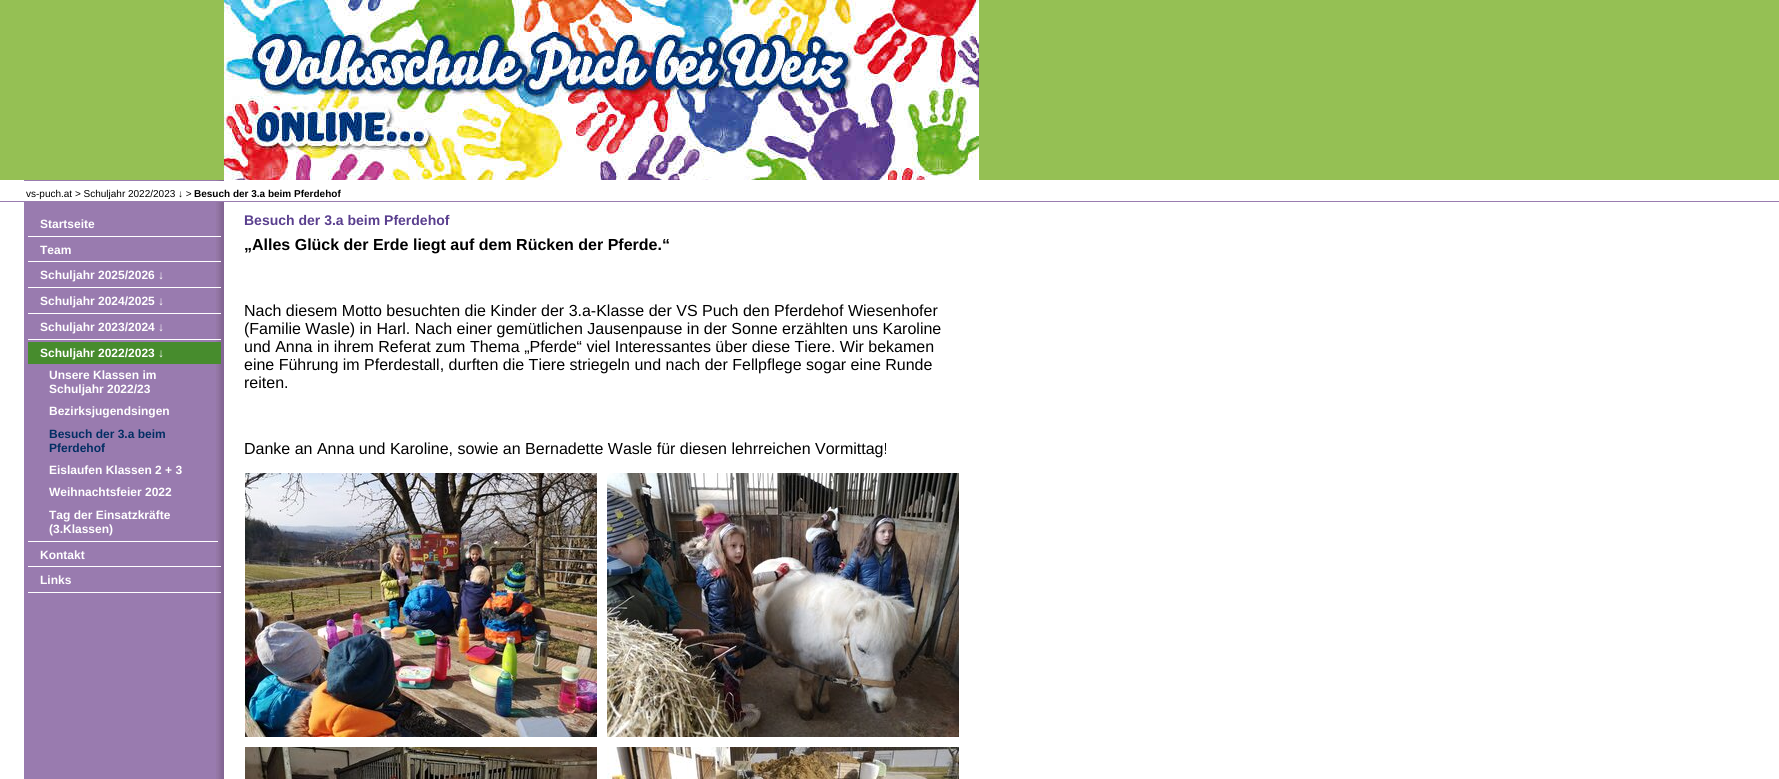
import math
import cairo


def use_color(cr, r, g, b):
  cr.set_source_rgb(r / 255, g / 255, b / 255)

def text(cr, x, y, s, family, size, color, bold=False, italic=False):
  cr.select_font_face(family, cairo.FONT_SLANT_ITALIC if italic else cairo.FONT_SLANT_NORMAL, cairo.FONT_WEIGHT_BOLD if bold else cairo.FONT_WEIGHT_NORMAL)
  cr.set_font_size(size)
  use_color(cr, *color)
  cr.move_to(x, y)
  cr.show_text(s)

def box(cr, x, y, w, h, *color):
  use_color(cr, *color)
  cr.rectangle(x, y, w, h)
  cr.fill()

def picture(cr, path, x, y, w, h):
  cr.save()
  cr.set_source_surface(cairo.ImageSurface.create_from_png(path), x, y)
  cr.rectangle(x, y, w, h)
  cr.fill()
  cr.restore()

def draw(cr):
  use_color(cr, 255, 255, 255)
  cr.paint()
  picture(cr, "img_01.png", 24, 180, 200, 599)
  box(cr, 0, 0, 1779, 180, 149, 192, 84)
  picture(cr, "img_02.png", 224, 0, 755, 180)
  box(cr, 24, 181, 200, 20, 255, 255, 255)
  box(cr, 0, 201, 1779, 1, 154, 124, 176)
  picture(cr, "img_03.png", 24, 202, 200, 402)
  box(cr, 28, 236, 193, 1, 255, 255, 255)
  box(cr, 28, 261, 193, 1, 255, 255, 255)
  box(cr, 28, 287, 193, 1, 255, 255, 255)
  box(cr, 28, 313, 193, 1, 255, 255, 255)
  box(cr, 28, 339, 193, 1, 255, 255, 255)
  box(cr, 28, 342, 193, 22, 71, 140, 45)
  box(cr, 28, 541, 190, 1, 255, 255, 255)
  box(cr, 28, 566, 193, 1, 255, 255, 255)
  box(cr, 28, 592, 193, 1, 255, 255, 255)
  picture(cr, "img_04.png", 245, 473, 352, 264)
  picture(cr, "img_05.png", 607, 473, 352, 264)
  picture(cr, "img_06.png", 245, 747, 352, 32)
  picture(cr, "img_07.png", 607, 747, 352, 32)
  text(cr, 26, 197, "vs-puch.at > Schuljahr 2022/2023 ↓ >", "Liberation Sans", 10, (0, 0, 0))
  text(cr, 194, 197, "Besuch der 3.a beim Pferdehof", "Liberation Sans", 10, (0, 0, 0), bold=True)
  text(cr, 40, 228, "Startseite", "Liberation Sans", 12, (255, 255, 255), bold=True)
  text(cr, 40, 254, "Team", "Liberation Sans", 12, (255, 255, 255), bold=True)
  text(cr, 40, 279, "Schuljahr 2025/2026 ↓", "Liberation Sans", 12, (255, 255, 255), bold=True)
  text(cr, 40, 305, "Schuljahr 2024/2025 ↓", "Liberation Sans", 12, (255, 255, 255), bold=True)
  text(cr, 40, 331, "Schuljahr 2023/2024 ↓", "Liberation Sans", 12, (255, 255, 255), bold=True)
  text(cr, 40, 357, "Schuljahr 2022/2023 ↓", "Liberation Sans", 12, (255, 255, 255), bold=True)
  text(cr, 49, 379, "Unsere Klassen im", "Liberation Sans", 12, (255, 255, 255), bold=True)
  text(cr, 49, 393, "Schuljahr 2022/23", "Liberation Sans", 12, (255, 255, 255), bold=True)
  text(cr, 49, 415, "Bezirksjugendsingen", "Liberation Sans", 12, (255, 255, 255), bold=True)
  text(cr, 49, 438, "Besuch der 3.a beim", "Liberation Sans", 12, (2, 46, 99), bold=True)
  text(cr, 49, 452, "Pferdehof", "Liberation Sans", 12, (2, 46, 99), bold=True)
  text(cr, 49, 474, "Eislaufen Klassen 2 + 3", "Liberation Sans", 12, (255, 255, 255), bold=True)
  text(cr, 49, 496, "Weihnachtsfeier 2022", "Liberation Sans", 12, (255, 255, 255), bold=True)
  text(cr, 49, 519, "Tag der Einsatzkräfte", "Liberation Sans", 12, (255, 255, 255), bold=True)
  text(cr, 49, 533, "(3.Klassen)", "Liberation Sans", 12, (255, 255, 255), bold=True)
  text(cr, 40, 559, "Kontakt", "Liberation Sans", 12, (255, 255, 255), bold=True)
  text(cr, 40, 584, "Links", "Liberation Sans", 12, (255, 255, 255), bold=True)
  text(cr, 244, 225, "Besuch der 3.a beim Pferdehof", "Liberation Sans", 14, (90, 63, 142), bold=True)
  text(cr, 244, 250, "„Alles Glück der Erde liegt auf dem Rücken der Pferde.“", "Liberation Sans", 16, (0, 0, 0), bold=True)
  text(cr, 244, 316, "Nach diesem Motto besuchten die Kinder der 3.a-Klasse der VS Puch den Pferdehof Wiesenhofer", "Liberation Sans", 16, (0, 0, 0))
  text(cr, 244, 334, "(Familie Wasle) in Harl. Nach einer gemütlichen Jausenpause in der Sonne erzählten uns Karoline", "Liberation Sans", 16, (0, 0, 0))
  text(cr, 244, 352, "und Anna in ihrem Referat zum Thema „Pferde“ viel Interessantes über diese Tiere. Wir bekamen", "Liberation Sans", 16, (0, 0, 0))
  text(cr, 244, 370, "eine Führung im Pferdestall, durften die Tiere striegeln und nach der Fellpflege sogar eine Runde", "Liberation Sans", 16, (0, 0, 0))
  text(cr, 244, 388, "reiten.", "Liberation Sans", 16, (0, 0, 0))
  text(cr, 244, 454, "Danke an Anna und Karoline, sowie an Bernadette Wasle für diesen lehrreichen Vormittag!", "Liberation Sans", 16, (0, 0, 0))


surface = cairo.ImageSurface(cairo.FORMAT_RGB24, 1779, 779)
cr = cairo.Context(surface)
options = cairo.FontOptions()
options.set_hint_metrics(cairo.HINT_METRICS_OFF)
options.set_hint_style(cairo.HINT_STYLE_NONE)
cr.set_font_options(options)
cr.set_miter_limit(4)
draw(cr)
surface.write_to_png("out.png")
